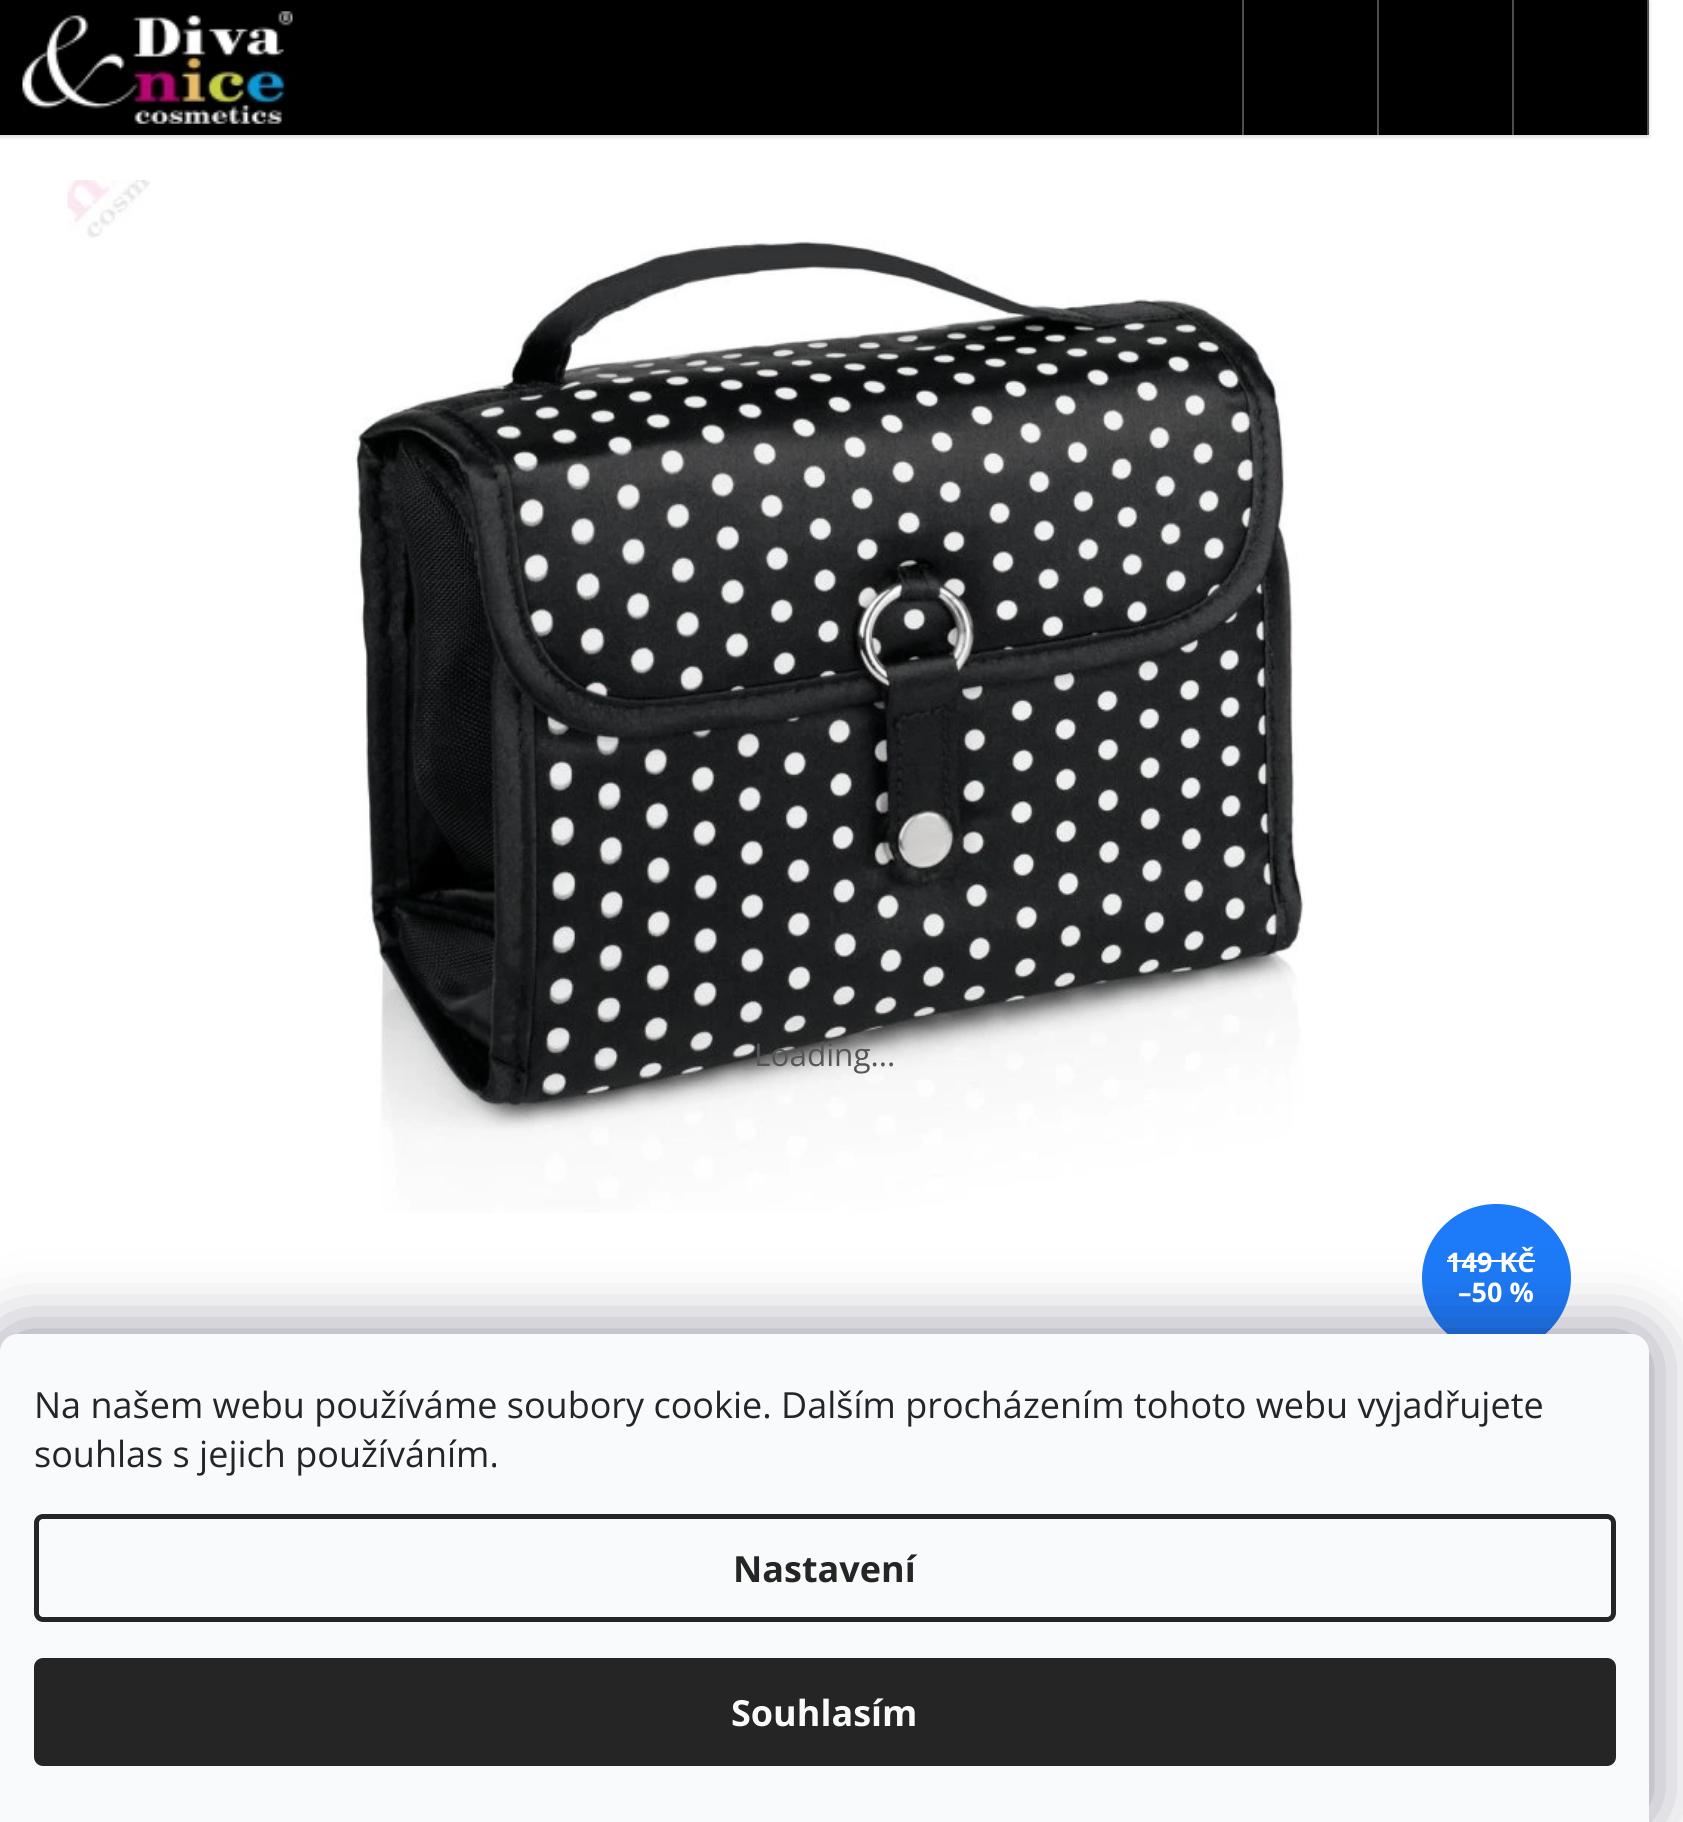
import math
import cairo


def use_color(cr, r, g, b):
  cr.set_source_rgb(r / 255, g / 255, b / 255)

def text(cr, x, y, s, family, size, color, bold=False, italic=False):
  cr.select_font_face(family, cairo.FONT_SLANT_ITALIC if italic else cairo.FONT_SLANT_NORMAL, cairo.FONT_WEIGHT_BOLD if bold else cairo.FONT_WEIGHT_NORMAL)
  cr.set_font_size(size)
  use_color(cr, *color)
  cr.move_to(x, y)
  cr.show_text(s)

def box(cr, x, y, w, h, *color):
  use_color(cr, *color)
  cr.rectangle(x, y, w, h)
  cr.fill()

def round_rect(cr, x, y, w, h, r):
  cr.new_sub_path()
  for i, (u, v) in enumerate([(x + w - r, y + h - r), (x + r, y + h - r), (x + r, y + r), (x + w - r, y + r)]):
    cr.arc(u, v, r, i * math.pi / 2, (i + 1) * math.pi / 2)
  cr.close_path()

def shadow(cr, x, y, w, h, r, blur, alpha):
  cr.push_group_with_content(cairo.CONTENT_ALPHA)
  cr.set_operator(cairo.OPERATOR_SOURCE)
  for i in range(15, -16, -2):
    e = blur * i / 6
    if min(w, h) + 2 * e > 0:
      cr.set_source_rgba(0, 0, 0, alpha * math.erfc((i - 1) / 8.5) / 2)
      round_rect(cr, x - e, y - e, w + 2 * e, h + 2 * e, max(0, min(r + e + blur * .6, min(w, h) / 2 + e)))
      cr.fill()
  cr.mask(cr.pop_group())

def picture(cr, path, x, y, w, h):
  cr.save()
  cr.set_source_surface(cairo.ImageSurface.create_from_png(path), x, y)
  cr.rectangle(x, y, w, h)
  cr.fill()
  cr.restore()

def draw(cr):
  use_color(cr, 255, 255, 255)
  cr.paint()
  use_color(cr, 0, 0, 0)
  shadow(cr, 0, 2, 1649, 135, 0, 2, 0.16)
  box(cr, 0, 0, 1647, 135, 0, 0, 0)
  picture(cr, "img_01.png", 22, 11, 271, 113)
  box(cr, 1647, 0, 2, 135, 77, 77, 77)
  box(cr, 1242, 0, 2, 135, 77, 77, 77)
  box(cr, 1377, 0, 2, 135, 77, 77, 77)
  box(cr, 1512, 0, 2, 135, 77, 77, 77)
  picture(cr, "img_02.png", 67, 180, 1238, 1033)
  use_color(cr, 29, 122, 248)
  round_rect(cr, 1422, 1204, 149, 148, 74)
  cr.fill()
  box(cr, 1447, 1260, 88, 2, 255, 255, 255)
  use_color(cr, 27, 25, 57)
  shadow(cr, 0, 1334, 1649, 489, 18, 34, 0.5)
  use_color(cr, 248, 250, 251)
  cr.new_path()
  cr.move_to(18, 1334)
  cr.line_to(1631, 1334)
  cr.curve_to(1641, 1334, 1649, 1342, 1649, 1352)
  cr.line_to(1649, 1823)
  cr.line_to(0, 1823)
  cr.line_to(0, 1352)
  cr.curve_to(0, 1342, 8, 1334, 18, 1334)
  cr.close_path()
  cr.fill()
  round_rect(cr, 36.5, 1516.5, 1577, 103, 6.5)
  use_color(cr, 37, 37, 37)
  cr.set_line_width(5)
  cr.stroke()
  round_rect(cr, 34, 1658, 1582, 108, 9)
  cr.fill()
  text(cr, 754, 1066, "Loading...", "Open Sans", 31.5, (85, 85, 85))
  text(cr, 1446, 1272, "149 KČ", "Open Sans", 27, (255, 255, 255), bold=True)
  text(cr, 1458, 1302, "–50 %", "Open Sans", 27, (255, 255, 255), bold=True)
  text(cr, 34, 1418, "Na našem webu používáme soubory cookie. Dalším procházením tohoto webu vyjadřujete", "Open Sans", 36, (37, 37, 37))
  text(cr, 34, 1467, "souhlas s jejich používáním.", "Open Sans", 36, (37, 37, 37))
  text(cr, 733, 1582, "Nastavení", "Open Sans", 36, (37, 37, 37), bold=True)
  text(cr, 731, 1726, "Souhlasím", "Open Sans", 36, (248, 250, 251), bold=True)


surface = cairo.ImageSurface(cairo.FORMAT_RGB24, 1683, 1822)
cr = cairo.Context(surface)
options = cairo.FontOptions()
options.set_hint_metrics(cairo.HINT_METRICS_OFF)
options.set_hint_style(cairo.HINT_STYLE_NONE)
cr.set_font_options(options)
cr.set_miter_limit(4)
draw(cr)
surface.write_to_png("out.png")
